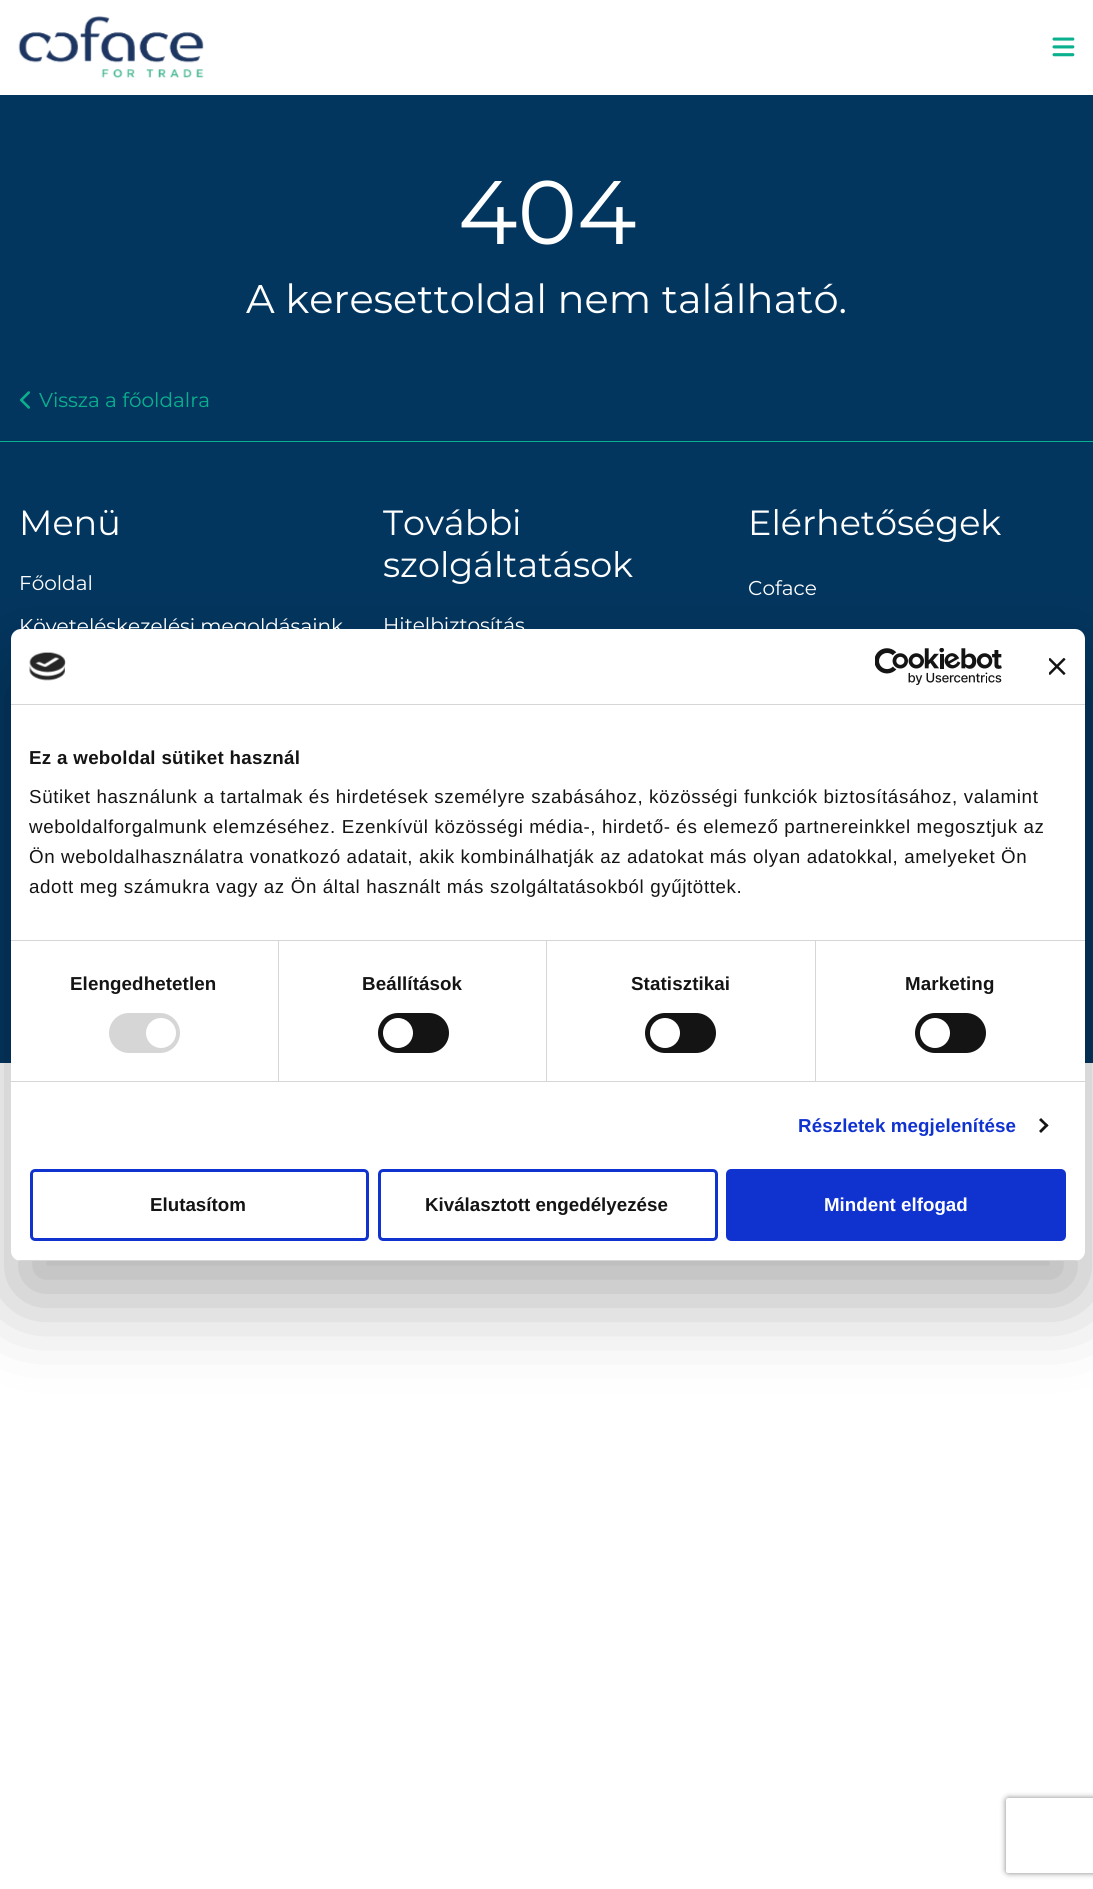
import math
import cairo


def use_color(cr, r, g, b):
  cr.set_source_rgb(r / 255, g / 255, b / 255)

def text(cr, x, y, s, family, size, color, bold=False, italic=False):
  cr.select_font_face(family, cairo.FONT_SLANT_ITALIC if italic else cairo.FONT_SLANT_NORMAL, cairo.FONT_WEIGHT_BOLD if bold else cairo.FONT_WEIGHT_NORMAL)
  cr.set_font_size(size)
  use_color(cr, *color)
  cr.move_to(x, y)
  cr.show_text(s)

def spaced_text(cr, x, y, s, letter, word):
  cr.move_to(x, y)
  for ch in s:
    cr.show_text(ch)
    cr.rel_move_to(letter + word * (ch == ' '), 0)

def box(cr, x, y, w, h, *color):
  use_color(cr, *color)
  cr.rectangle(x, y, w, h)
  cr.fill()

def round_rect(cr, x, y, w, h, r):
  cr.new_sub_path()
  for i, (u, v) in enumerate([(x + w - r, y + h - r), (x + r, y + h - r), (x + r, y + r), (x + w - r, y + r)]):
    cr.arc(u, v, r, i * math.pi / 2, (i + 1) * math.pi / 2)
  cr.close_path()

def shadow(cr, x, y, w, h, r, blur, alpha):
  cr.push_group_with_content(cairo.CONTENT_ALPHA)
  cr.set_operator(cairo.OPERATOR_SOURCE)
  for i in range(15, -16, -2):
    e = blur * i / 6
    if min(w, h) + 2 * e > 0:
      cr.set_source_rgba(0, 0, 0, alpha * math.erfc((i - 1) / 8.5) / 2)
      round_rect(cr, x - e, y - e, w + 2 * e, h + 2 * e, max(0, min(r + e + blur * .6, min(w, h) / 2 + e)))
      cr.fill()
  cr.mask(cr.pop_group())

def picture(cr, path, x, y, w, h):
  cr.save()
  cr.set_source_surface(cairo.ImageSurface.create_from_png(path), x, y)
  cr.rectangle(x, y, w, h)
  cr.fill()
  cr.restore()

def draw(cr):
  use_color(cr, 255, 255, 255)
  cr.paint()
  picture(cr, "img_01.png", 18, 16, 186, 63)
  picture(cr, "img_02.png", 1052, 37, 23, 20)
  box(cr, 0, 95, 1093, 968, 3, 54, 95)
  box(cr, 0, 441, 1093, 1, 11, 177, 143)
  picture(cr, "img_03.png", 20, 391, 10, 18)
  use_color(cr, 0, 0, 0)
  shadow(cr, 11, 669, 1074, 632, 10, 42.5, 0.3)
  use_color(cr, 255, 255, 255)
  round_rect(cr, 11, 629, 1074, 632, 10)
  cr.fill()
  box(cr, 11, 704, 1074, 1, 214, 214, 214)
  picture(cr, "img_04.png", 29, 652, 37, 29)
  picture(cr, "img_05.png", 875, 648, 127, 37)
  picture(cr, "img_06.png", 1049, 658, 17, 17)
  box(cr, 11, 940, 1074, 1, 214, 214, 214)
  box(cr, 11, 1081, 1074, 1, 214, 214, 214)
  box(cr, 278, 941, 1, 140, 214, 214, 214)
  round_rect(cr, 109, 1013, 71, 40, 20)
  cr.fill()
  use_color(cr, 255, 255, 255)
  cr.arc(161, 1033, 15, 0, 2 * math.pi)
  cr.fill()
  box(cr, 546, 941, 1, 140, 214, 214, 214)
  use_color(cr, 20, 20, 20)
  round_rect(cr, 378, 1013, 71, 40, 20)
  cr.fill()
  use_color(cr, 255, 255, 255)
  cr.arc(398, 1033, 15, 0, 2 * math.pi)
  cr.fill()
  box(cr, 815, 941, 1, 140, 214, 214, 214)
  use_color(cr, 20, 20, 20)
  round_rect(cr, 645, 1013, 71, 40, 20)
  cr.fill()
  use_color(cr, 255, 255, 255)
  cr.arc(665, 1033, 15, 0, 2 * math.pi)
  cr.fill()
  use_color(cr, 20, 20, 20)
  round_rect(cr, 915, 1013, 71, 40, 20)
  cr.fill()
  use_color(cr, 255, 255, 255)
  cr.arc(935, 1033, 15, 0, 2 * math.pi)
  cr.fill()
  use_color(cr, 20, 20, 20)
  cr.new_path()
  cr.move_to(1041, 1118)
  cr.line_to(1048.5, 1125.5)
  cr.line_to(1046.5, 1127)
  cr.line_to(1039, 1120)
  cr.close_path()
  cr.fill()
  cr.new_path()
  cr.move_to(1046.5, 1123.5)
  cr.line_to(1048.5, 1125.5)
  cr.line_to(1041, 1133)
  cr.line_to(1039, 1131)
  cr.close_path()
  cr.fill()
  cr.save()
  round_rect(cr, 11, 629, 1074, 632, 10)
  cr.clip()
  box(cr, 11, 1260, 1074, 1, 214, 214, 214)
  cr.restore()
  round_rect(cr, 31.5, 1170.5, 336, 69, 3.5)
  use_color(cr, 16, 50, 207)
  cr.set_line_width(3)
  cr.stroke()
  round_rect(cr, 379.5, 1170.5, 337, 69, 3.5)
  cr.stroke()
  round_rect(cr, 727.5, 1170.5, 337, 69, 3.5)
  cr.fill_preserve()
  cr.stroke()
  cr.save()
  cr.set_fill_rule(cairo.FILL_RULE_EVEN_ODD)
  cr.new_path()
  cr.move_to(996, 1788)
  cr.line_to(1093, 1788)
  cr.line_to(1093, 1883)
  cr.line_to(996, 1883)
  cr.close_path()
  cr.move_to(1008.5, 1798)
  cr.line_to(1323.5, 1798)
  cr.curve_to(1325, 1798, 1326, 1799, 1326, 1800.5)
  cr.line_to(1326, 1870.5)
  cr.curve_to(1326, 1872, 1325, 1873, 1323.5, 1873)
  cr.line_to(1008.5, 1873)
  cr.curve_to(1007, 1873, 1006, 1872, 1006, 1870.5)
  cr.line_to(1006, 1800.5)
  cr.curve_to(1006, 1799, 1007, 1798, 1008.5, 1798)
  cr.close_path()
  cr.clip()
  use_color(cr, 128, 128, 128)
  shadow(cr, 1006, 1798, 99, 75, 2.5, 3, 1)
  cr.restore()
  text(cr, 458, 244, "404", "Montserrat", 90, (255, 255, 255))
  text(cr, 246, 313, "A keresettoldal nem található.", "Montserrat", 40, (255, 255, 255))
  text(cr, 39, 407, "Vissza a főoldalra", "Montserrat", 20, (11, 177, 143))
  text(cr, 19, 535, "Menü", "Montserrat", 35, (255, 255, 255))
  text(cr, 19, 590, "Főoldal", "Montserrat", 20, (255, 255, 255))
  text(cr, 19, 633, "Követeléskezelési megoldásaink", "Montserrat", 20, (255, 255, 255))
  text(cr, 383, 535, "További", "Montserrat", 35, (255, 255, 255))
  text(cr, 383, 577, "szolgáltatások", "Montserrat", 35, (255, 255, 255))
  text(cr, 383, 632, "Hitelbiztosítás", "Montserrat", 20, (255, 255, 255))
  text(cr, 748, 535, "Elérhetőségek", "Montserrat", 35, (255, 255, 255))
  text(cr, 748, 595, "Coface", "Montserrat", 20, (255, 255, 255))
  cr.select_font_face("Liberation Sans", cairo.FONT_SLANT_NORMAL, cairo.FONT_WEIGHT_BOLD)
  cr.set_font_size(18.75)
  use_color(cr, 20, 20, 20)
  spaced_text(cr, 29, 764, "Ez a weboldal sütiket használ", 0.3, 0)
  cr.select_font_face("Liberation Sans")
  spaced_text(cr, 29, 803, "Sütiket használunk a tartalmak és hirdetések személyre szabásához, közösségi funkciók biztosításához, valamint", 0.62, 0)
  spaced_text(cr, 29, 833, "weboldalforgalmunk elemzéséhez. Ezenkívül közösségi média-, hirdető- és elemező partnereinkkel megosztjuk az", 0.62, 0)
  spaced_text(cr, 29, 863, "Ön weboldalhasználatra vonatkozó adatait, akik kombinálhatják az adatokat más olyan adatokkal, amelyeket Ön", 0.62, 0)
  spaced_text(cr, 29, 893, "adott meg számukra vagy az Ön által használt más szolgáltatásokból gyűjtöttek.", 0.62, 0)
  cr.select_font_face("Liberation Sans", cairo.FONT_SLANT_NORMAL, cairo.FONT_WEIGHT_BOLD)
  spaced_text(cr, 70, 990, "Elengedhetetlen", 0.1, 0)
  spaced_text(cr, 362, 990, "Beállítások", 0.1, 0)
  spaced_text(cr, 631, 990, "Statisztikai", 0.1, 0)
  spaced_text(cr, 905, 990, "Marketing", 0.1, 0)
  use_color(cr, 16, 50, 207)
  spaced_text(cr, 798, 1132, "Részletek megjelenítése", 0.1, 0)
  text(cr, 150, 1211, "Elutasítom", "Liberation Sans", 18.75, (20, 20, 20), bold=True)
  text(cr, 425, 1211, "Kiválasztott engedélyezése", "Liberation Sans", 18.75, (20, 20, 20), bold=True)
  text(cr, 824, 1211, "Mindent elfogad", "Liberation Sans", 18.75, (255, 255, 255), bold=True)


surface = cairo.ImageSurface(cairo.FORMAT_RGB24, 1093, 1889)
cr = cairo.Context(surface)
options = cairo.FontOptions()
options.set_hint_metrics(cairo.HINT_METRICS_OFF)
options.set_hint_style(cairo.HINT_STYLE_NONE)
cr.set_font_options(options)
cr.set_miter_limit(4)
draw(cr)
surface.write_to_png("out.png")
